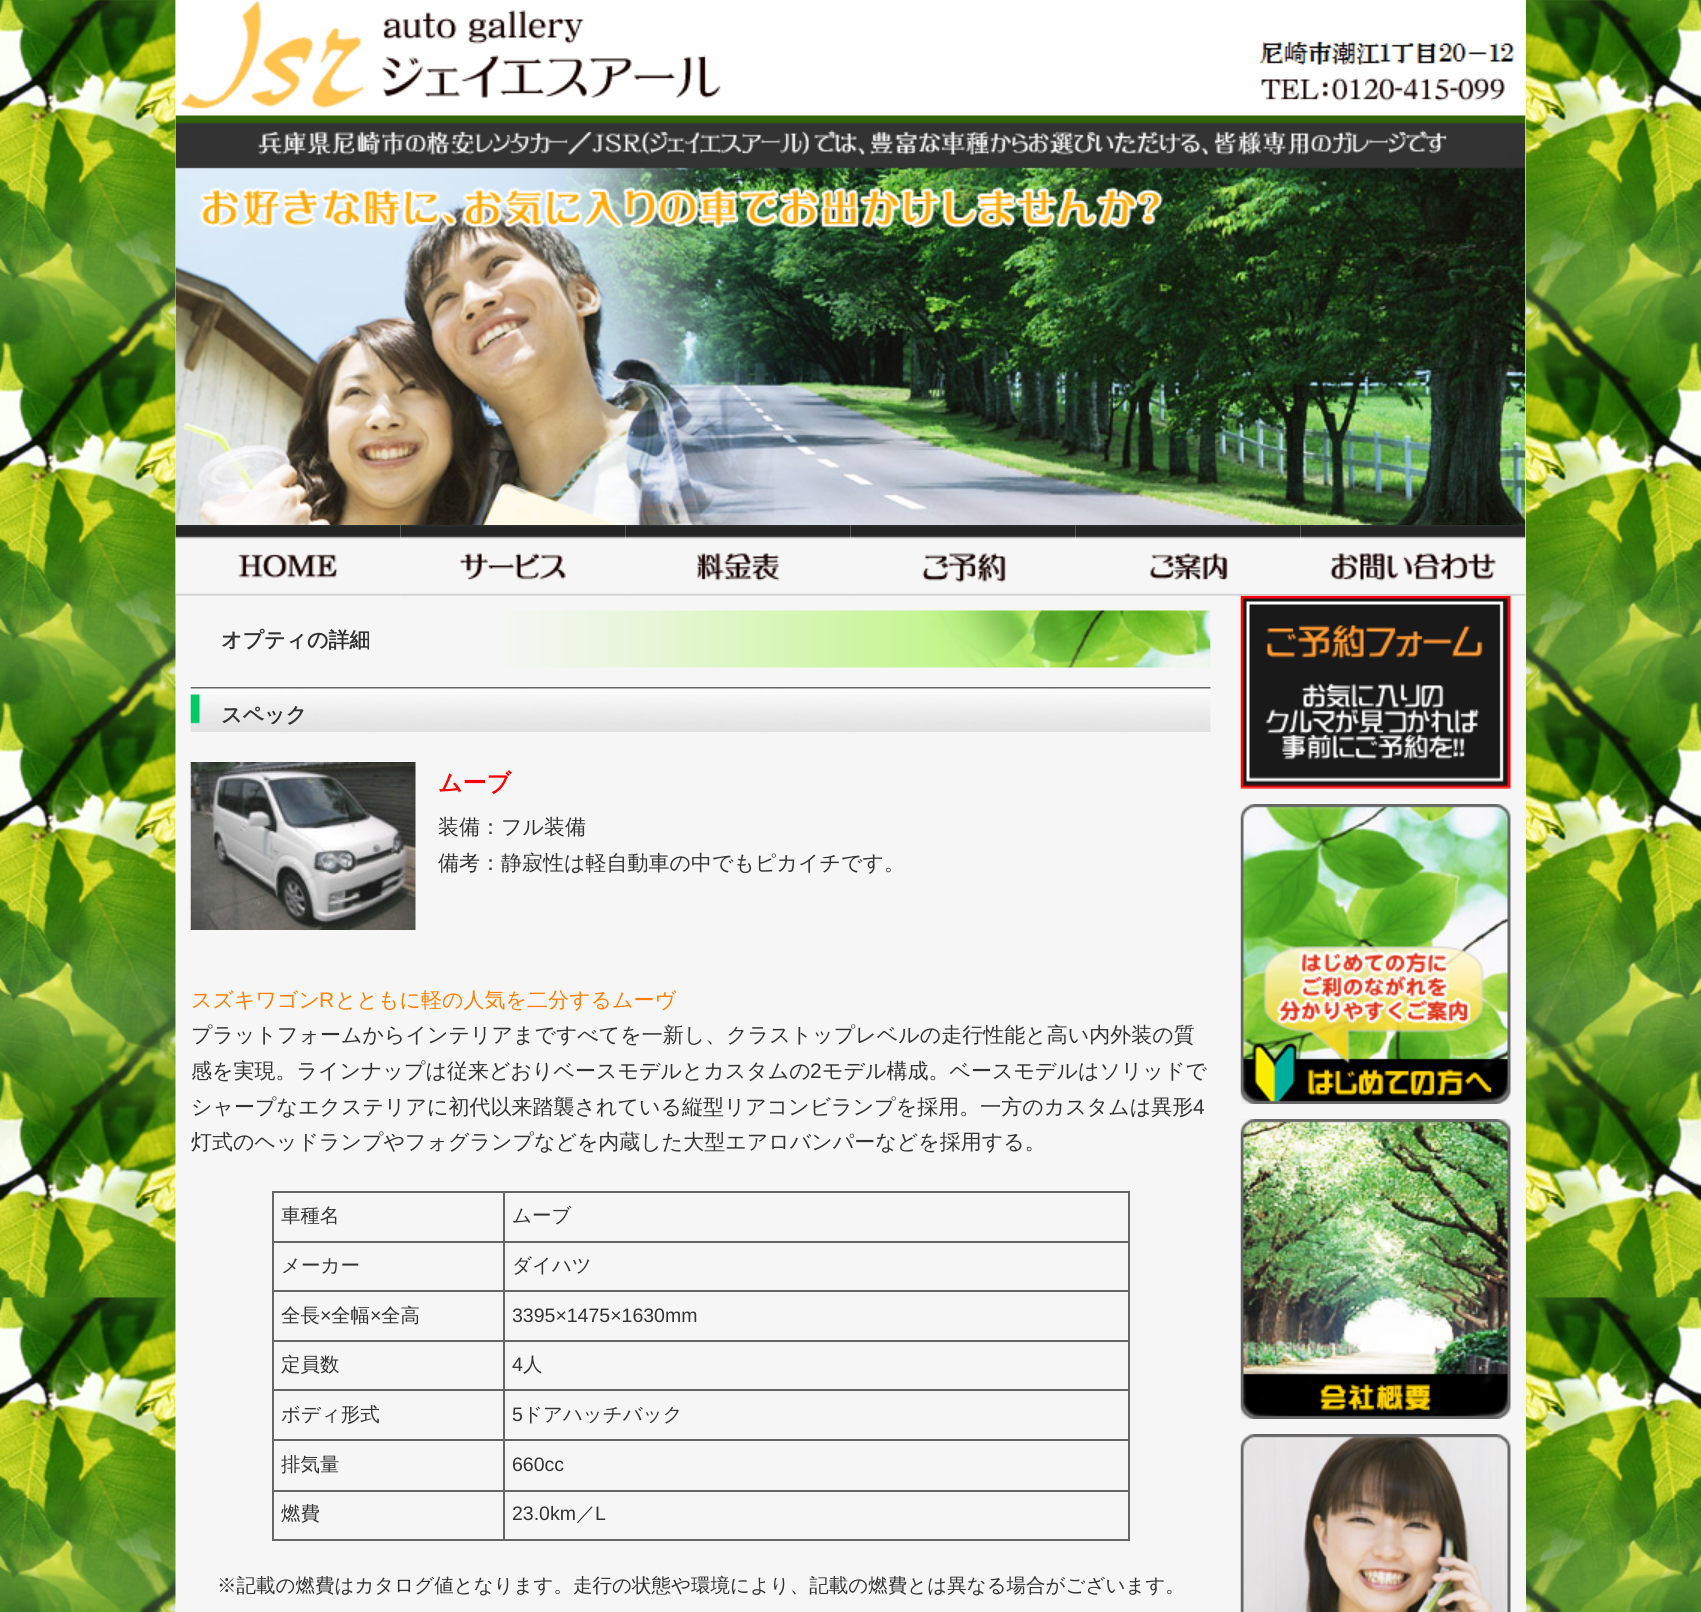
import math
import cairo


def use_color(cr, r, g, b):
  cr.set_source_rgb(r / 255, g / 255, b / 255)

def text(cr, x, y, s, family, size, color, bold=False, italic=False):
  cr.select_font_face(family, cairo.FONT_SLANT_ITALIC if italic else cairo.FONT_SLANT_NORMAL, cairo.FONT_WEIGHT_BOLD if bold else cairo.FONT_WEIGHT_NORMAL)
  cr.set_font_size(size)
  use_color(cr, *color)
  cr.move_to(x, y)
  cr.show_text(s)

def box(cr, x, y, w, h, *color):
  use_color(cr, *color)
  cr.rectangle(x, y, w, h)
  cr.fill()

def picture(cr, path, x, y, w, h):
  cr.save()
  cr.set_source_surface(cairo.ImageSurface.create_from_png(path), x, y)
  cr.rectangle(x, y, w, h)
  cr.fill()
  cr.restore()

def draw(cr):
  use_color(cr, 255, 255, 255)
  cr.paint()
  picture(cr, "img_01.png", 0, 0, 1701, 1612)
  box(cr, 176, 0, 1350, 1612, 246, 246, 246)
  picture(cr, "img_02.png", 175, 0, 1351, 525)
  picture(cr, "img_03.png", 175, 525, 226, 71)
  picture(cr, "img_04.png", 400, 525, 226, 71)
  picture(cr, "img_05.png", 625, 525, 226, 71)
  picture(cr, "img_06.png", 850, 525, 226, 71)
  picture(cr, "img_12.png", 1240, 595, 271, 194)
  picture(cr, "img_07.png", 1075, 525, 226, 71)
  picture(cr, "img_08.png", 1300, 525, 226, 71)
  picture(cr, "img_09.png", 506, 610, 705, 58)
  picture(cr, "img_10.png", 190, 687, 1021, 45)
  picture(cr, "img_11.png", 190, 762, 226, 168)
  box(cr, 272, 1191, 858, 2, 102, 102, 102)
  box(cr, 1128, 1191, 2, 350, 102, 102, 102)
  box(cr, 272, 1539, 858, 2, 102, 102, 102)
  box(cr, 272, 1191, 2, 350, 102, 102, 102)
  box(cr, 503, 1241, 627, 2, 102, 102, 102)
  box(cr, 503, 1290, 627, 2, 102, 102, 102)
  box(cr, 503, 1340, 627, 2, 102, 102, 102)
  box(cr, 503, 1389, 627, 2, 102, 102, 102)
  box(cr, 503, 1439, 627, 2, 102, 102, 102)
  box(cr, 503, 1490, 627, 2, 102, 102, 102)
  box(cr, 503, 1490, 2, 51, 102, 102, 102)
  box(cr, 272, 1490, 232, 2, 102, 102, 102)
  box(cr, 503, 1439, 2, 52, 102, 102, 102)
  box(cr, 272, 1439, 232, 2, 102, 102, 102)
  box(cr, 503, 1389, 2, 51, 102, 102, 102)
  box(cr, 272, 1389, 232, 2, 102, 102, 102)
  box(cr, 503, 1340, 2, 51, 102, 102, 102)
  box(cr, 272, 1340, 232, 2, 102, 102, 102)
  box(cr, 503, 1290, 2, 51, 102, 102, 102)
  box(cr, 272, 1290, 232, 2, 102, 102, 102)
  box(cr, 503, 1241, 2, 51, 102, 102, 102)
  box(cr, 272, 1241, 232, 2, 102, 102, 102)
  box(cr, 503, 1191, 2, 51, 102, 102, 102)
  picture(cr, "img_13.png", 1240, 804, 271, 300)
  picture(cr, "img_14.png", 1240, 1119, 271, 300)
  picture(cr, "img_15.png", 1240, 1434, 271, 178)
  text(cr, 221, 647, "オプティの詳細", "WenQuanYi Zen Hei", 21, (51, 51, 51), bold=True)
  text(cr, 221, 722, "スペック", "WenQuanYi Zen Hei", 21, (51, 51, 51), bold=True)
  text(cr, 438, 791, "ムーブ", "WenQuanYi Zen Hei", 24, (255, 0, 0), bold=True)
  text(cr, 438, 834, "装備：フル装備", "WenQuanYi Zen Hei Medium", 21, (51, 51, 51))
  text(cr, 438, 870, "備考：静寂性は軽自動車の中でもピカイチです。", "WenQuanYi Zen Hei Medium", 21, (51, 51, 51))
  text(cr, 191, 1007, "スズキワゴン", "WenQuanYi Zen Hei Medium", 21, (255, 128, 0))
  text(cr, 319, 1007, "R", "Liberation Sans", 21, (255, 128, 0))
  text(cr, 335, 1007, "とともに軽の人気を二分するムーヴ", "WenQuanYi Zen Hei Medium", 21, (255, 128, 0))
  text(cr, 191, 1042, "プラットフォームからインテリアまですべてを一新し、クラストップレベルの走行性能と高い内外装の質", "WenQuanYi Zen Hei Medium", 21, (51, 51, 51))
  text(cr, 191, 1078, "感を実現。ラインナップは従来どおりベースモデルとカスタムの", "WenQuanYi Zen Hei Medium", 21, (51, 51, 51))
  text(cr, 810, 1078, "2", "Liberation Sans", 21, (51, 51, 51))
  text(cr, 822, 1078, "モデル構成。ベースモデルはソリッドで", "WenQuanYi Zen Hei Medium", 21, (51, 51, 51))
  text(cr, 191, 1114, "シャープなエクステリアに初代以来踏襲されている縦型リアコンビランプを採用。一方のカスタムは異形", "WenQuanYi Zen Hei Medium", 21, (51, 51, 51))
  text(cr, 1193, 1114, "4", "Liberation Sans", 21, (51, 51, 51))
  text(cr, 191, 1149, "灯式のヘッドランプやフォグランプなどを内蔵した大型エアロバンパーなどを採用する。", "WenQuanYi Zen Hei Medium", 21, (51, 51, 51))
  text(cr, 281, 1222, "車種名", "WenQuanYi Zen Hei Medium", 19.5, (51, 51, 51))
  text(cr, 512, 1222, "ムーブ", "WenQuanYi Zen Hei Medium", 19.5, (51, 51, 51))
  text(cr, 281, 1272, "メーカー", "WenQuanYi Zen Hei Medium", 19.5, (51, 51, 51))
  text(cr, 512, 1272, "ダイハツ", "WenQuanYi Zen Hei Medium", 19.5, (51, 51, 51))
  text(cr, 281, 1322, "全長", "WenQuanYi Zen Hei Medium", 19.5, (51, 51, 51))
  text(cr, 320, 1322, "×", "Liberation Sans", 19.5, (51, 51, 51))
  text(cr, 331, 1322, "全幅", "WenQuanYi Zen Hei Medium", 19.5, (51, 51, 51))
  text(cr, 370, 1322, "×", "Liberation Sans", 19.5, (51, 51, 51))
  text(cr, 381, 1322, "全高", "WenQuanYi Zen Hei Medium", 19.5, (51, 51, 51))
  text(cr, 512, 1322, "3395×1475×1630mm", "Liberation Sans", 19.5, (51, 51, 51))
  text(cr, 281, 1371, "定員数", "WenQuanYi Zen Hei Medium", 19.5, (51, 51, 51))
  text(cr, 512, 1371, "4", "Liberation Sans", 19.5, (51, 51, 51))
  text(cr, 523, 1371, "人", "WenQuanYi Zen Hei Medium", 19.5, (51, 51, 51))
  text(cr, 281, 1421, "ボディ形式", "WenQuanYi Zen Hei Medium", 19.5, (51, 51, 51))
  text(cr, 512, 1421, "5", "Liberation Sans", 19.5, (51, 51, 51))
  text(cr, 523, 1421, "ドアハッチバック", "WenQuanYi Zen Hei Medium", 19.5, (51, 51, 51))
  text(cr, 281, 1471, "排気量", "WenQuanYi Zen Hei Medium", 19.5, (51, 51, 51))
  text(cr, 512, 1471, "660cc", "Liberation Sans", 19.5, (51, 51, 51))
  text(cr, 281, 1520, "燃費", "WenQuanYi Zen Hei Medium", 19.5, (51, 51, 51))
  text(cr, 512, 1520, "23.0km", "Liberation Sans", 19.5, (51, 51, 51))
  text(cr, 576, 1520, "／", "WenQuanYi Zen Hei Medium", 19.5, (51, 51, 51))
  text(cr, 595, 1520, "L", "Liberation Sans", 19.5, (51, 51, 51))
  text(cr, 217, 1592, "※記載の燃費はカタログ値となります。走行の状態や環境により、記載の燃費とは異なる場合がございます。", "WenQuanYi Zen Hei Medium", 19.5, (51, 51, 51))


surface = cairo.ImageSurface(cairo.FORMAT_RGB24, 1701, 1612)
cr = cairo.Context(surface)
options = cairo.FontOptions()
options.set_hint_metrics(cairo.HINT_METRICS_OFF)
options.set_hint_style(cairo.HINT_STYLE_NONE)
cr.set_font_options(options)
cr.set_miter_limit(4)
draw(cr)
surface.write_to_png("out.png")
